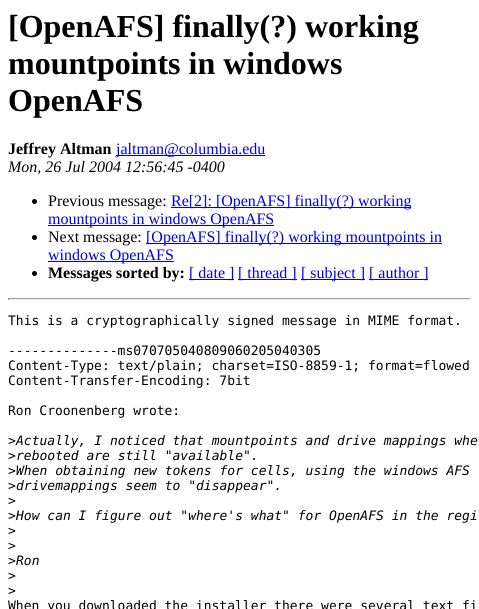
import math
import cairo


def use_color(cr, r, g, b):
  cr.set_source_rgb(r / 255, g / 255, b / 255)

def text(cr, x, y, s, family, size, color, bold=False, italic=False):
  cr.select_font_face(family, cairo.FONT_SLANT_ITALIC if italic else cairo.FONT_SLANT_NORMAL, cairo.FONT_WEIGHT_BOLD if bold else cairo.FONT_WEIGHT_NORMAL)
  cr.set_font_size(size)
  use_color(cr, *color)
  cr.move_to(x, y)
  cr.show_text(s)

def box(cr, x, y, w, h, *color):
  use_color(cr, *color)
  cr.rectangle(x, y, w, h)
  cr.fill()

def draw(cr):
  use_color(cr, 255, 255, 255)
  cr.paint()
  box(cr, 116, 155, 149, 1, 0, 0, 238)
  use_color(cr, 0, 0, 0)
  cr.arc(34.5, 201.5, 2.5, 0, 2 * math.pi)
  cr.fill()
  box(cr, 171, 207, 240, 1, 0, 0, 238)
  box(cr, 48, 225, 226, 1, 0, 0, 238)
  use_color(cr, 0, 0, 0)
  cr.arc(34.5, 237.5, 2.5, 0, 2 * math.pi)
  cr.fill()
  box(cr, 146, 243, 296, 1, 0, 0, 238)
  box(cr, 48, 261, 126, 1, 0, 0, 238)
  use_color(cr, 0, 0, 0)
  cr.arc(34.5, 273.5, 2.5, 0, 2 * math.pi)
  cr.fill()
  box(cr, 189, 279, 45, 1, 0, 0, 238)
  box(cr, 238, 279, 59, 1, 0, 0, 238)
  box(cr, 301, 279, 64, 1, 0, 0, 238)
  box(cr, 369, 279, 59, 1, 0, 0, 238)
  box(cr, 8, 298, 463, 1, 159, 159, 159)
  box(cr, 470, 298, 1, 2, 238, 238, 238)
  box(cr, 8, 299, 463, 1, 238, 238, 238)
  box(cr, 8, 298, 1, 2, 159, 159, 159)
  text(cr, 8, 37, "[OpenAFS] finally(?) working", "Liberation Serif", 32, (0, 0, 0), bold=True)
  text(cr, 8, 74, "mountpoints in windows", "Liberation Serif", 32, (0, 0, 0), bold=True)
  text(cr, 8, 111, "OpenAFS", "Liberation Serif", 32, (0, 0, 0), bold=True)
  text(cr, 8, 154, "Jeffrey Altman", "Liberation Serif", 16, (0, 0, 0), bold=True)
  text(cr, 116, 154, "jaltman@columbia.edu", "Liberation Serif", 16, (0, 0, 238))
  text(cr, 8, 172, "Mon, 26 Jul 2004 12:56:45 -0400", "Liberation Serif", 16, (0, 0, 0), italic=True)
  text(cr, 48, 206, "Previous message:", "Liberation Serif", 16, (0, 0, 0))
  text(cr, 171, 206, "Re[2]: [OpenAFS] finally(?) working", "Liberation Serif", 16, (0, 0, 238))
  text(cr, 48, 224, "mountpoints in windows OpenAFS", "Liberation Serif", 16, (0, 0, 238))
  text(cr, 48, 242, "Next message:", "Liberation Serif", 16, (0, 0, 0))
  text(cr, 146, 242, "[OpenAFS] finally(?) working mountpoints in", "Liberation Serif", 16, (0, 0, 238))
  text(cr, 48, 260, "windows OpenAFS", "Liberation Serif", 16, (0, 0, 238))
  text(cr, 48, 278, "Messages sorted by:", "Liberation Serif", 16, (0, 0, 0), bold=True)
  text(cr, 189, 278, "[ date ]", "Liberation Serif", 16, (0, 0, 238))
  text(cr, 238, 278, "[ thread ]", "Liberation Serif", 16, (0, 0, 238))
  text(cr, 301, 278, "[ subject ]", "Liberation Serif", 16, (0, 0, 238))
  text(cr, 369, 278, "[ author ]", "Liberation Serif", 16, (0, 0, 238))
  text(cr, 8, 325, "This is a cryptographically signed message in MIME format.", "DejaVu Sans Mono", 13, (0, 0, 0))
  text(cr, 8, 355, "--------------ms070705040809060205040305", "DejaVu Sans Mono", 13, (0, 0, 0))
  text(cr, 8, 370, "Content-Type: text/plain; charset=ISO-8859-1; format=flowed", "DejaVu Sans Mono", 13, (0, 0, 0))
  text(cr, 8, 385, "Content-Transfer-Encoding: 7bit", "DejaVu Sans Mono", 13, (0, 0, 0))
  text(cr, 8, 415, "Ron Croonenberg wrote:", "DejaVu Sans Mono", 13, (0, 0, 0))
  text(cr, 8, 445, ">", "DejaVu Sans Mono", 13, (0, 0, 0))
  text(cr, 16, 445, "Actually, I noticed that mountpoints and drive mappings whe", "DejaVu Sans Mono", 13, (0, 0, 0), italic=True)
  text(cr, 8, 460, ">", "DejaVu Sans Mono", 13, (0, 0, 0))
  text(cr, 16, 460, "rebooted are still \"available\".", "DejaVu Sans Mono", 13, (0, 0, 0), italic=True)
  text(cr, 8, 475, ">", "DejaVu Sans Mono", 13, (0, 0, 0))
  text(cr, 16, 475, "When obtaining new tokens for cells, using the windows AFS", "DejaVu Sans Mono", 13, (0, 0, 0), italic=True)
  text(cr, 8, 490, ">", "DejaVu Sans Mono", 13, (0, 0, 0))
  text(cr, 16, 490, "drivemappings seem to \"disappear\".", "DejaVu Sans Mono", 13, (0, 0, 0), italic=True)
  text(cr, 8, 505, ">", "DejaVu Sans Mono", 13, (0, 0, 0))
  text(cr, 8, 520, ">", "DejaVu Sans Mono", 13, (0, 0, 0))
  text(cr, 16, 520, "How can I figure out \"where's what\" for OpenAFS in the regi", "DejaVu Sans Mono", 13, (0, 0, 0), italic=True)
  text(cr, 8, 535, ">", "DejaVu Sans Mono", 13, (0, 0, 0))
  text(cr, 8, 550, ">", "DejaVu Sans Mono", 13, (0, 0, 0))
  text(cr, 8, 565, ">", "DejaVu Sans Mono", 13, (0, 0, 0))
  text(cr, 16, 565, "Ron", "DejaVu Sans Mono", 13, (0, 0, 0), italic=True)
  text(cr, 8, 580, ">", "DejaVu Sans Mono", 13, (0, 0, 0))
  text(cr, 8, 595, ">", "DejaVu Sans Mono", 13, (0, 0, 0))
  text(cr, 8, 610, "When you downloaded the installer there were several text fi", "DejaVu Sans Mono", 13, (0, 0, 0))


surface = cairo.ImageSurface(cairo.FORMAT_RGB24, 479, 609)
cr = cairo.Context(surface)
options = cairo.FontOptions()
options.set_hint_metrics(cairo.HINT_METRICS_OFF)
options.set_hint_style(cairo.HINT_STYLE_NONE)
cr.set_font_options(options)
cr.set_miter_limit(4)
draw(cr)
surface.write_to_png("out.png")
